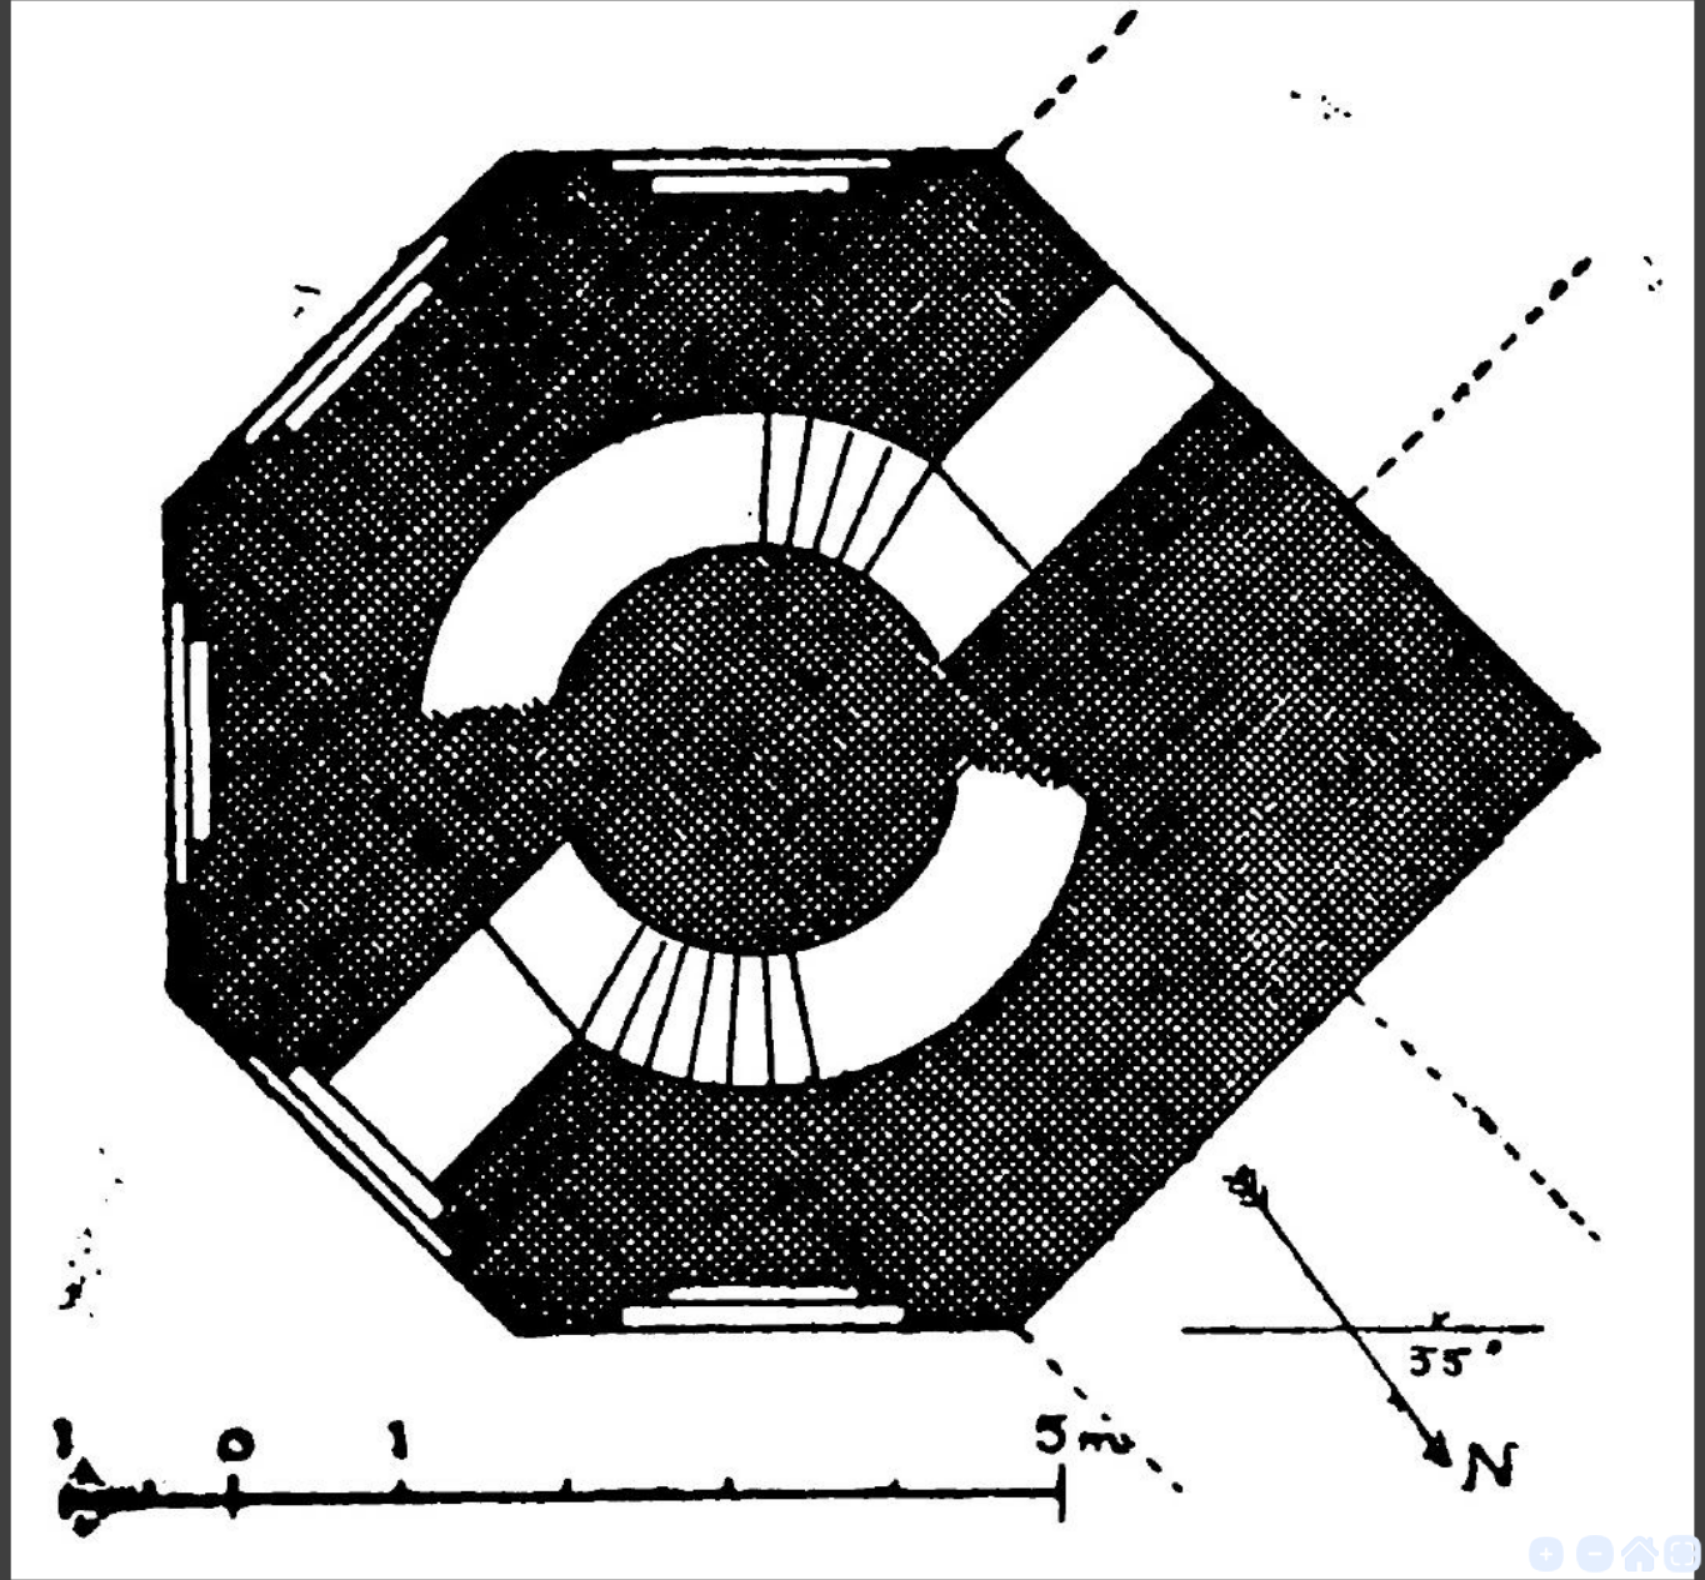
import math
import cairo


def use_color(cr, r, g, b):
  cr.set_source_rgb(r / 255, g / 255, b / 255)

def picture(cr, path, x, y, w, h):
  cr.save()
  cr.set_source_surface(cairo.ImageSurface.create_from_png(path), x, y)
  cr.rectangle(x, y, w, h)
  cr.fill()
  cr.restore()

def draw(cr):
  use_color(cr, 63, 63, 63)
  cr.paint()
  picture(cr, "img_01.png", 10, 0, 1686, 1580)
  picture(cr, "img_02.png", 1528, 1536, 36, 36)
  picture(cr, "img_03.png", 1529, 1538, 34, 33)
  picture(cr, "img_04.png", 1576, 1535, 38, 38)
  picture(cr, "img_05.png", 1577, 1536, 36, 36)
  picture(cr, "img_06.png", 1621, 1535, 38, 37)
  picture(cr, "img_07.png", 1621, 1536, 38, 35)
  picture(cr, "img_08.png", 1663, 1534, 40, 39)
  picture(cr, "img_09.png", 1664, 1536, 38, 36)


surface = cairo.ImageSurface(cairo.FORMAT_RGB24, 1705, 1580)
cr = cairo.Context(surface)
options = cairo.FontOptions()
options.set_hint_metrics(cairo.HINT_METRICS_OFF)
options.set_hint_style(cairo.HINT_STYLE_NONE)
cr.set_font_options(options)
cr.set_miter_limit(4)
draw(cr)
surface.write_to_png("out.png")
